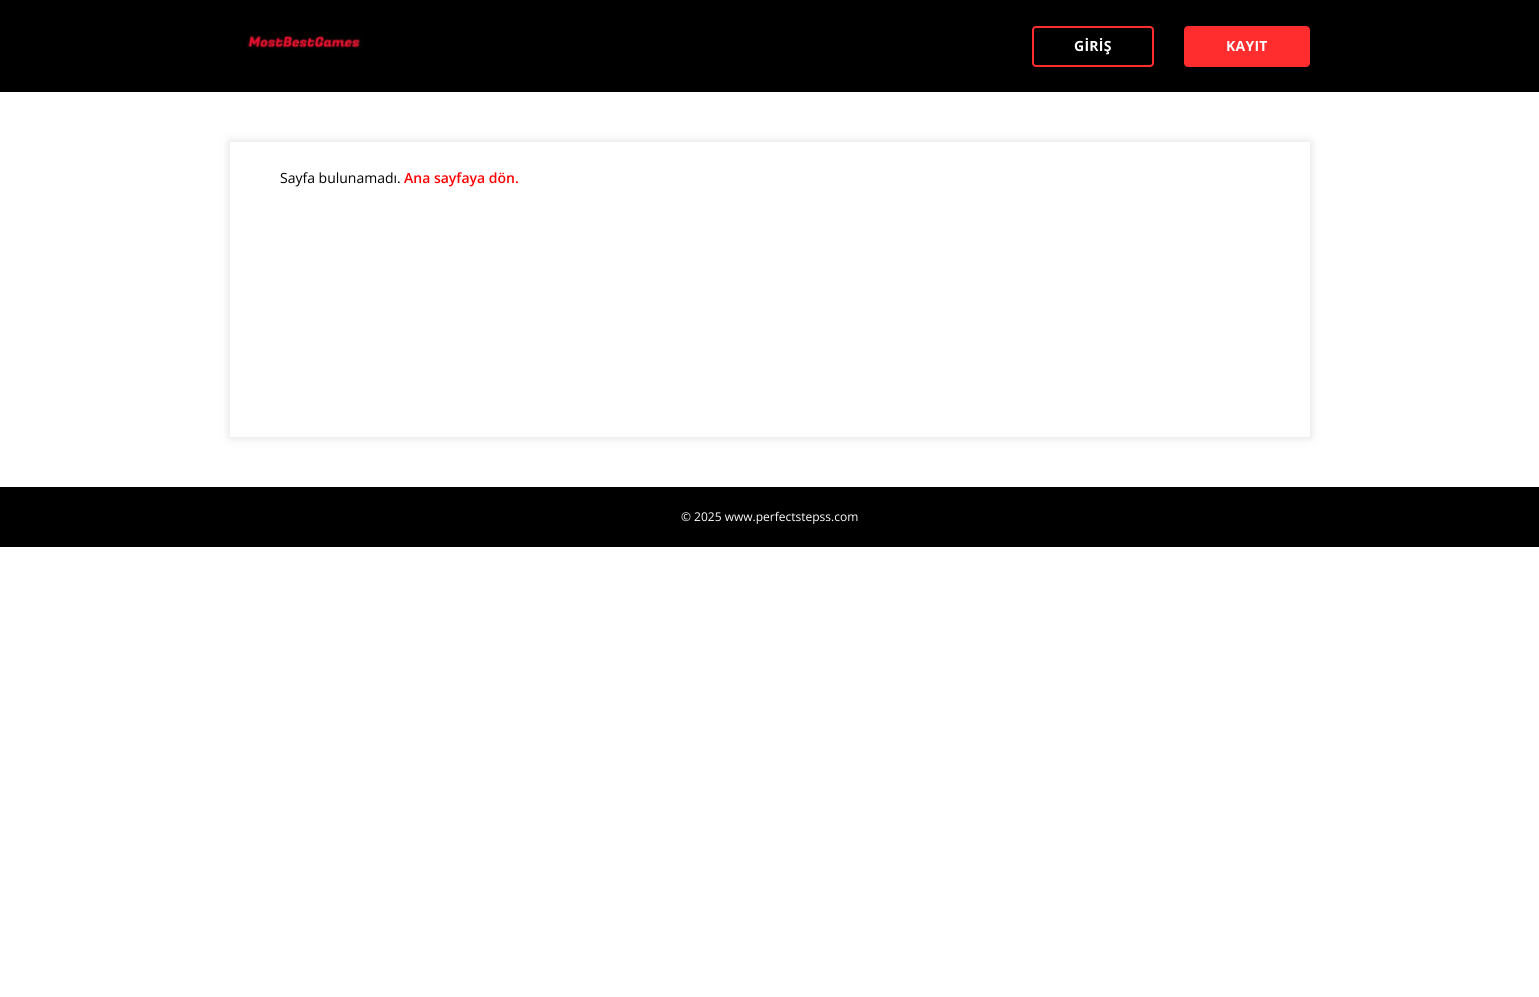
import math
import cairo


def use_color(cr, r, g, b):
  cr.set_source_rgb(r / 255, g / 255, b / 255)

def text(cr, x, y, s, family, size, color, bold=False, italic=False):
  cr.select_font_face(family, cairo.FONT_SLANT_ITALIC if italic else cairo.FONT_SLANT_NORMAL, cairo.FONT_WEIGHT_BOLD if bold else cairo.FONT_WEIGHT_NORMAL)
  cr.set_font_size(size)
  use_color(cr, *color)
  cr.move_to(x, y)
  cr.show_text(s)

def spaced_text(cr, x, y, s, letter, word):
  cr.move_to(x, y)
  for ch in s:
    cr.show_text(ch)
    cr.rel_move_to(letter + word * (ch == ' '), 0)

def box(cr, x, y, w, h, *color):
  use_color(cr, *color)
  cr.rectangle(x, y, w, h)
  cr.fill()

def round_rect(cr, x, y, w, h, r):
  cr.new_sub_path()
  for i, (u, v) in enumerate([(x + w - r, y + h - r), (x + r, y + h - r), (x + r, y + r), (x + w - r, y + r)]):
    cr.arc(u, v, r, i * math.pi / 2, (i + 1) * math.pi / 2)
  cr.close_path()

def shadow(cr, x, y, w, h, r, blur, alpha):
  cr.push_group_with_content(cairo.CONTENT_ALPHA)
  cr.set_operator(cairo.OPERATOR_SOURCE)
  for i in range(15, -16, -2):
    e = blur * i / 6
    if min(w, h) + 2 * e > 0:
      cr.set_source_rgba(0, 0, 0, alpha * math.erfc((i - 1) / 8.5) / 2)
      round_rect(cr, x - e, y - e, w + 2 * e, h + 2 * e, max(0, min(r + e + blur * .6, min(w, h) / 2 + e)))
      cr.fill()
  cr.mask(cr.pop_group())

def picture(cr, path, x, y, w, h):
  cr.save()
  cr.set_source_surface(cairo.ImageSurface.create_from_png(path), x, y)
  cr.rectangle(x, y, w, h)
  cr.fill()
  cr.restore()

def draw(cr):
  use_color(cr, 255, 255, 255)
  cr.paint()
  box(cr, 0, 0, 1539, 92, 0, 0, 0)
  picture(cr, "img_01.png", 246, 34, 118, 16)
  round_rect(cr, 1033, 27, 120, 39, 3)
  use_color(cr, 255, 45, 45)
  cr.stroke()
  round_rect(cr, 1185, 27, 124, 39, 3)
  cr.fill_preserve()
  cr.stroke()
  cr.save()
  cr.set_fill_rule(cairo.FILL_RULE_EVEN_ODD)
  cr.new_path()
  cr.move_to(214, 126)
  cr.line_to(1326, 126)
  cr.line_to(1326, 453)
  cr.line_to(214, 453)
  cr.close_path()
  cr.move_to(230, 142)
  cr.line_to(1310, 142)
  cr.line_to(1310, 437)
  cr.line_to(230, 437)
  cr.close_path()
  cr.clip()
  use_color(cr, 50, 50, 50)
  shadow(cr, 230, 142, 1080, 295, 0, 5, 0.17)
  cr.restore()
  box(cr, 0, 487, 1539, 60, 0, 0, 0)
  cr.select_font_face("Open Sans", cairo.FONT_SLANT_NORMAL, cairo.FONT_WEIGHT_BOLD)
  cr.set_font_size(14)
  use_color(cr, 255, 255, 255)
  spaced_text(cr, 1074, 51, "GİRİŞ", 0.25, 0)
  spaced_text(cr, 1226, 51, "KAYIT", 0.25, 0)
  text(cr, 280, 183, "Sayfa bulunamadı.", "Open Sans", 14, (0, 0, 0))
  text(cr, 404, 183, "Ana sayfaya dön.", "Open Sans SemiBold", 14, (255, 0, 0))
  text(cr, 681, 521, "© 2025 www.perfectstepss.com", "Open Sans", 12, (255, 255, 255))


surface = cairo.ImageSurface(cairo.FORMAT_RGB24, 1539, 997)
cr = cairo.Context(surface)
options = cairo.FontOptions()
options.set_hint_metrics(cairo.HINT_METRICS_OFF)
options.set_hint_style(cairo.HINT_STYLE_NONE)
cr.set_font_options(options)
cr.set_miter_limit(4)
draw(cr)
surface.write_to_png("out.png")
